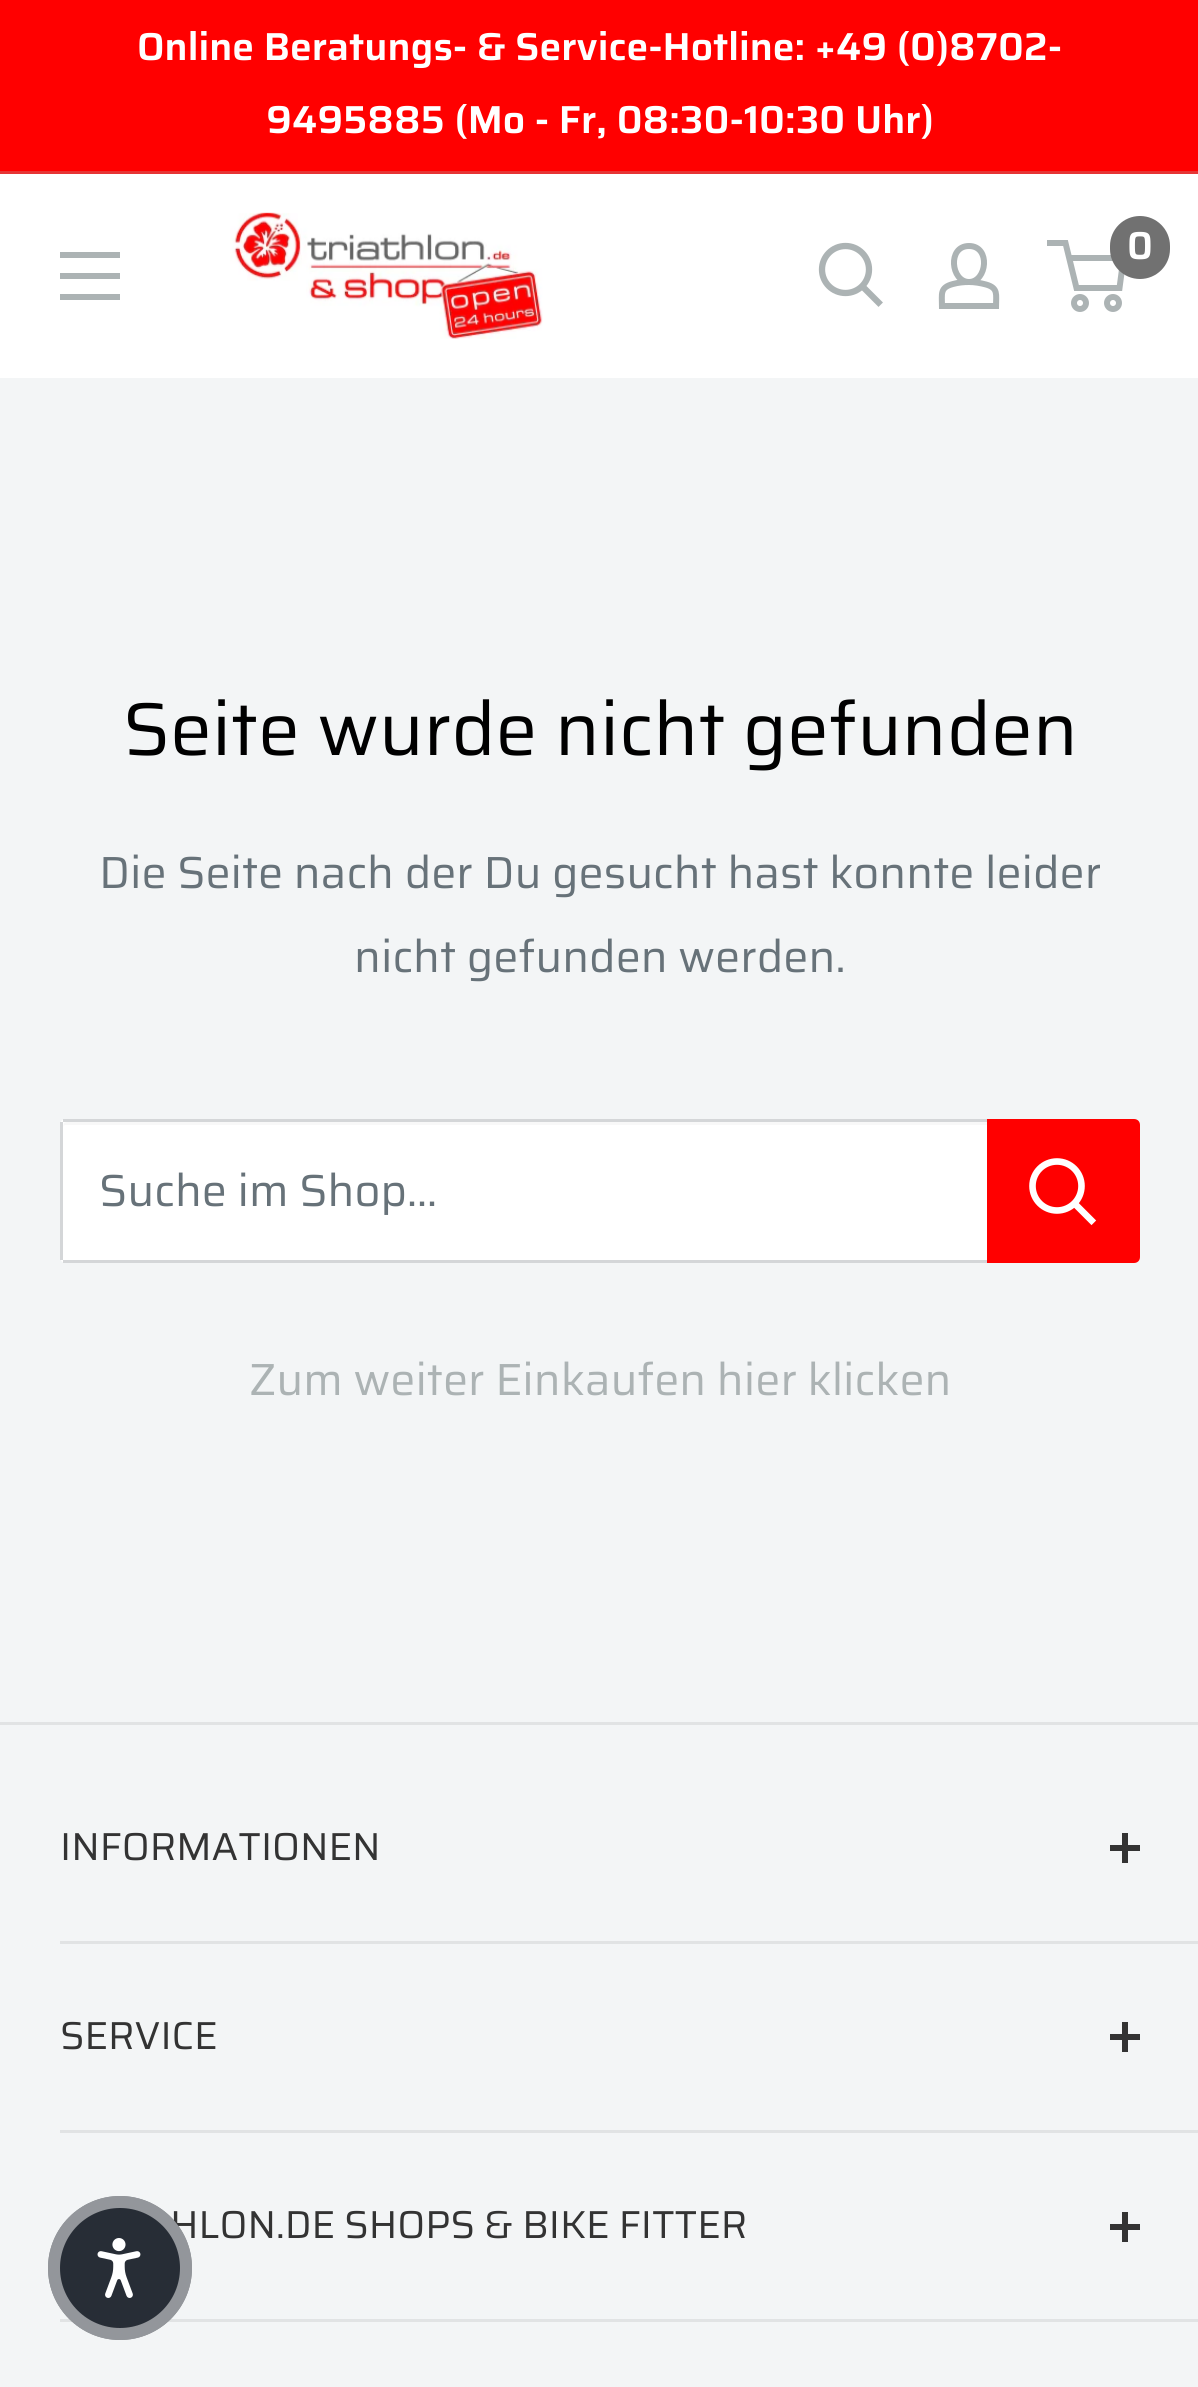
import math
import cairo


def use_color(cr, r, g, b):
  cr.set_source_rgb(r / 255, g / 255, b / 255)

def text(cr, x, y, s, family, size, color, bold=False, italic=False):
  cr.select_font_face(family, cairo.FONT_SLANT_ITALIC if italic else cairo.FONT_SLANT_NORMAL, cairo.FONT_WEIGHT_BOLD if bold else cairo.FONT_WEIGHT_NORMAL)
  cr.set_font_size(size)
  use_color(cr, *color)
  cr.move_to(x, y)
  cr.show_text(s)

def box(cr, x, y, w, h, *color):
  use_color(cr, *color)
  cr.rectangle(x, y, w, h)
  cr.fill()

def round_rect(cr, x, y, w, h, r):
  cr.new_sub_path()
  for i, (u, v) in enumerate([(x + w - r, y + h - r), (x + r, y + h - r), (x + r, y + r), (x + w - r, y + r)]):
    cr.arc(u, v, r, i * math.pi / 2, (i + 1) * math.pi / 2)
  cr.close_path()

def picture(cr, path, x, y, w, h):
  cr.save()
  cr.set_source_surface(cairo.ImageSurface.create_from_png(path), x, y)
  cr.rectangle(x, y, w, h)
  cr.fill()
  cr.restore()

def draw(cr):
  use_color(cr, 243, 245, 246)
  cr.paint()
  box(cr, 0, 0, 1198, 171, 255, 0, 0)
  box(cr, 0, 171, 1198, 3, 230, 53, 53)
  box(cr, 0, 174, 1198, 204, 255, 255, 255)
  picture(cr, "img_01.png", 230, 212, 313, 127)
  cr.new_path()
  cr.move_to(878.5, 302.5)
  cr.line_to(863, 287)
  use_color(cr, 172, 179, 180)
  cr.set_line_width(6.3)
  cr.set_line_cap(cairo.LINE_CAP_SQUARE)
  cr.stroke()
  cr.arc(845.5, 269.5, 23.5, 0, 2 * math.pi)
  cr.set_line_cap(cairo.LINE_CAP_BUTT)
  cr.stroke()
  cr.new_path()
  cr.move_to(969, 282)
  cr.curve_to(974.5, 282, 980.5, 283, 986, 284.5)
  cr.curve_to(998.5, 288, 996, 294.5, 996, 306)
  cr.line_to(942, 306)
  cr.curve_to(942, 294, 939.5, 287.5, 953, 284)
  cr.curve_to(958.5, 282.5, 963.5, 282, 969, 282)
  cr.close_path()
  cr.move_to(969, 282)
  cr.curve_to(951, 282, 947, 246, 969, 246)
  cr.curve_to(991, 246, 987, 282, 969, 282)
  cr.close_path()
  cr.set_line_width(6)
  cr.stroke()
  cr.arc(1080, 303, 6, 0, 2 * math.pi)
  cr.stroke()
  cr.arc(1113, 303, 6, 0, 2 * math.pi)
  cr.stroke()
  cr.new_path()
  cr.move_to(1069, 258)
  cr.line_to(1123.5, 258)
  cr.line_to(1119.5, 288)
  cr.line_to(1076.5, 288)
  cr.line_to(1065.5, 243)
  cr.line_to(1047, 243)
  cr.stroke()
  use_color(cr, 113, 113, 113)
  round_rect(cr, 1110, 216, 60, 63, 30)
  cr.fill()
  use_color(cr, 172, 179, 180)
  cr.set_fill_rule(cairo.FILL_RULE_EVEN_ODD)
  cr.new_path()
  cr.move_to(60, 294)
  cr.line_to(120, 294)
  cr.line_to(120, 300)
  cr.line_to(60, 300)
  cr.close_path()
  cr.move_to(60, 252)
  cr.line_to(120, 252)
  cr.line_to(120, 258)
  cr.line_to(60, 258)
  cr.close_path()
  cr.move_to(60, 273)
  cr.line_to(120, 273)
  cr.line_to(120, 279)
  cr.line_to(60, 279)
  cr.close_path()
  cr.fill()
  use_color(cr, 255, 255, 255)
  cr.new_path()
  cr.move_to(66, 1119)
  cr.line_to(987, 1119)
  cr.line_to(987, 1263)
  cr.line_to(66, 1263)
  cr.curve_to(62.5, 1263, 60, 1260.5, 60, 1257)
  cr.line_to(60, 1125)
  cr.curve_to(60, 1121.5, 62.5, 1119, 66, 1119)
  cr.close_path()
  cr.fill()
  use_color(cr, 248, 248, 248)
  cr.set_fill_rule(cairo.FILL_RULE_WINDING)
  cr.new_path()
  cr.move_to(66, 1125)
  cr.line_to(987, 1125)
  cr.line_to(987, 1122)
  cr.line_to(66, 1122)
  cr.line_to(64, 1123)
  cr.line_to(63, 1128)
  cr.curve_to(63, 1126, 64, 1125, 66, 1125)
  cr.close_path()
  cr.fill()
  box(cr, 63, 1119, 924, 3, 212, 214, 216)
  box(cr, 63, 1260, 924, 3, 212, 214, 216)
  box(cr, 60, 1122, 3, 138, 212, 214, 216)
  use_color(cr, 255, 0, 0)
  cr.new_path()
  cr.move_to(987, 1119)
  cr.line_to(1134, 1119)
  cr.curve_to(1137.5, 1119, 1140, 1121.5, 1140, 1125)
  cr.line_to(1140, 1257)
  cr.curve_to(1140, 1260.5, 1137.5, 1263, 1134, 1263)
  cr.line_to(987, 1263)
  cr.close_path()
  cr.fill()
  cr.new_path()
  cr.move_to(1091.5, 1220.5)
  cr.line_to(1075, 1204)
  use_color(cr, 255, 255, 255)
  cr.set_line_width(6.6)
  cr.set_line_cap(cairo.LINE_CAP_SQUARE)
  cr.stroke()
  cr.arc(1057, 1186, 24.5, 0, 2 * math.pi)
  cr.set_line_cap(cairo.LINE_CAP_BUTT)
  cr.stroke()
  box(cr, 0, 1722, 1198, 3, 225, 227, 228)
  box(cr, 60, 1941, 1138, 3, 225, 227, 228)
  box(cr, 1122, 1833, 6, 30, 51, 51, 51)
  box(cr, 1110, 1845, 30, 6, 51, 51, 51)
  box(cr, 60, 2130, 1138, 3, 225, 227, 228)
  box(cr, 1122, 2022, 6, 30, 51, 51, 51)
  box(cr, 1110, 2034, 30, 6, 51, 51, 51)
  box(cr, 60, 2319, 1138, 3, 225, 227, 228)
  box(cr, 1122, 2212, 6, 30, 51, 51, 51)
  box(cr, 1110, 2224, 30, 6, 51, 51, 51)
  text(cr, 137, 60, "Online Beratungs- & Service-Hotline: +49 (0)8702-", "Saira SemiBold", 39, (255, 255, 255))
  text(cr, 266, 133, "9495885 (Mo - Fr, 08:30-10:30 Uhr)", "Saira SemiBold", 39, (255, 255, 255))
  text(cr, 1127, 259, "0", "Saira SemiBold", 39, (255, 255, 255))
  text(cr, 123, 755, "Seite wurde nicht gefunden", "Saira", 75, (0, 0, 0))
  text(cr, 99, 888, "Die Seite nach der Du gesucht hast konnte leider", "Saira", 45, (103, 114, 121))
  text(cr, 354, 972, "nicht gefunden werden.", "Saira", 45, (103, 114, 121))
  text(cr, 99, 1206, "Suche im Shop...", "Saira", 45, (103, 114, 121))
  text(cr, 249, 1395, "Zum weiter Einkaufen hier klicken", "Saira", 45, (172, 179, 180))
  text(cr, 60, 1860, "INFORMATIONEN", "Saira", 39, (51, 51, 51))
  text(cr, 60, 2049, "SERVICE", "Saira", 39, (51, 51, 51))
  text(cr, 170, 2238, "HLON.DE SHOPS & BIKE FITTER", "Saira", 39, (51, 51, 51))
  use_color(cr, 39, 45, 54)
  cr.new_path()
  cr.arc(120, 2268, 72, 0, 2 * math.pi)
  cr.fill()
  cr.arc(120, 2268, 66, 0, 2 * math.pi)
  cr.set_source_rgba(1, 1, 1, 0.5)
  cr.set_line_width(12)
  cr.stroke()
  picture(cr, "img_02.png", 97, 2238, 44, 60)


surface = cairo.ImageSurface(cairo.FORMAT_RGB24, 1198, 2387)
cr = cairo.Context(surface)
options = cairo.FontOptions()
options.set_hint_metrics(cairo.HINT_METRICS_OFF)
options.set_hint_style(cairo.HINT_STYLE_NONE)
cr.set_font_options(options)
cr.set_miter_limit(4)
draw(cr)
surface.write_to_png("out.png")
